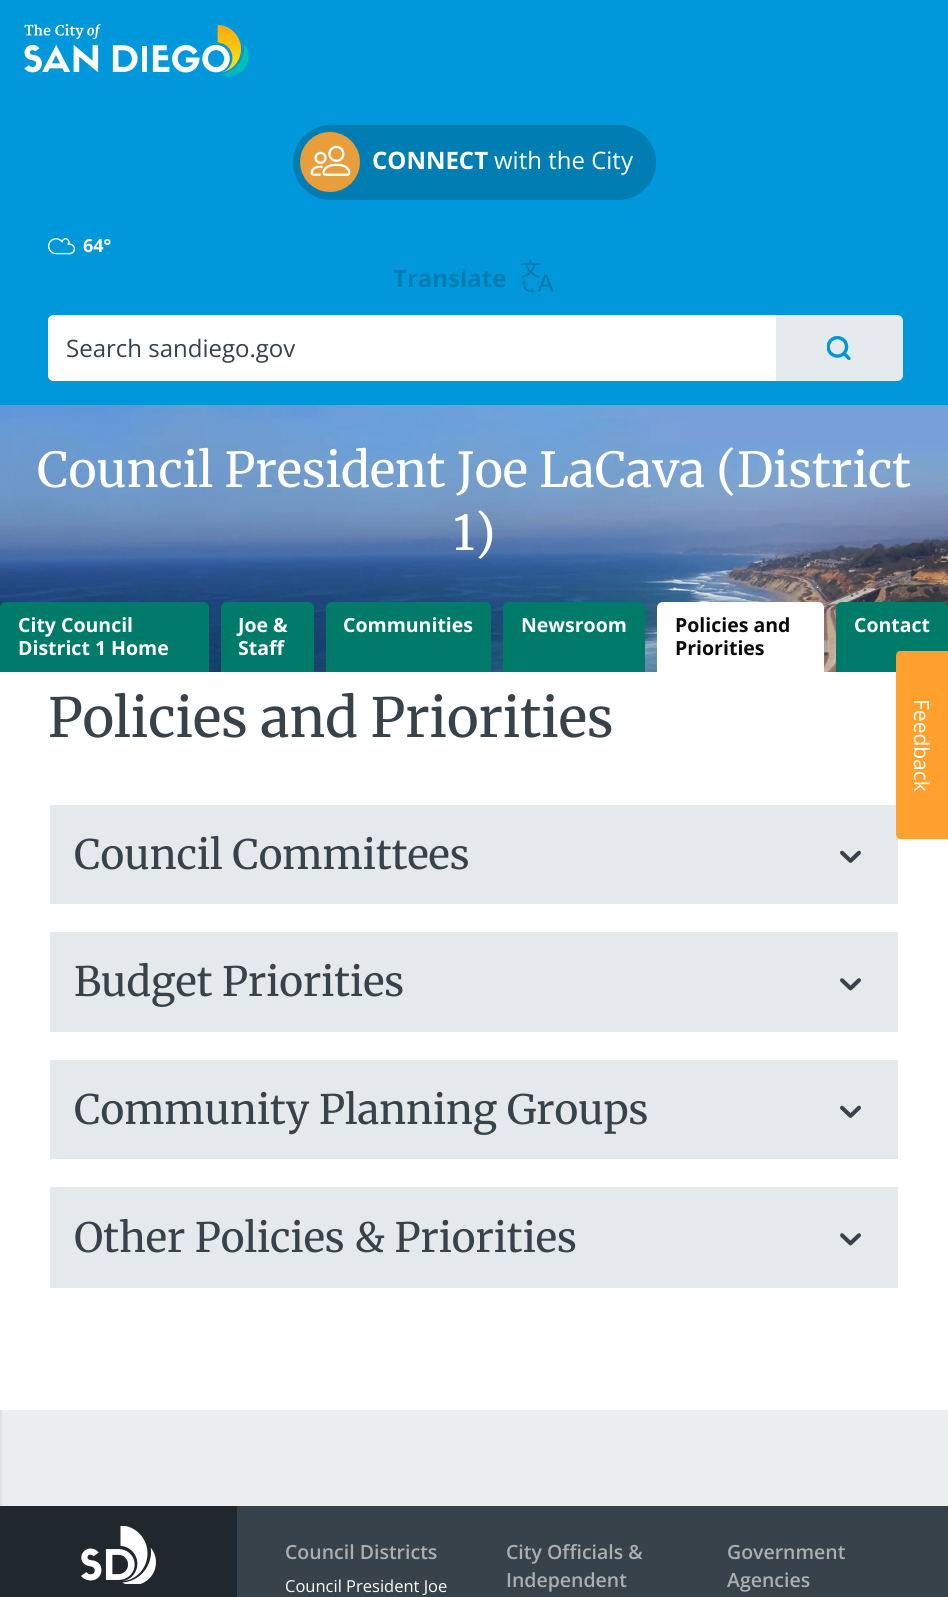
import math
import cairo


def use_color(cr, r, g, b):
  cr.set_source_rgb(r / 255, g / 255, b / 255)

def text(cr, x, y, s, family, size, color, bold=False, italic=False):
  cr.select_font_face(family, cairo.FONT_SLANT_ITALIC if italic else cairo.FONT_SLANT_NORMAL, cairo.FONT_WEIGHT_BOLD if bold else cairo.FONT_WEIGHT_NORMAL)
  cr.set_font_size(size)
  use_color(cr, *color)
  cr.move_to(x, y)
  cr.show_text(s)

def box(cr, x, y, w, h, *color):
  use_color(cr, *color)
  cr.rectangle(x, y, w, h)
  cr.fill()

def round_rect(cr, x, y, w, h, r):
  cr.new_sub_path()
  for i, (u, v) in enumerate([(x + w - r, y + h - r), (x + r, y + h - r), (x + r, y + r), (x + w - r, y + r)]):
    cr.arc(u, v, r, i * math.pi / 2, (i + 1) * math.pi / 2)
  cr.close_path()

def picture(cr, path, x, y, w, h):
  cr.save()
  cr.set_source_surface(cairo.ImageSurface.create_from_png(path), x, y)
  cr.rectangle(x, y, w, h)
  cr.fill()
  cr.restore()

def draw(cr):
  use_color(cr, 255, 255, 255)
  cr.paint()
  box(cr, 0, 0, 948, 405, 0, 152, 219)
  picture(cr, "img_01.png", 24, 24, 225, 53)
  use_color(cr, 0, 125, 179)
  round_rect(cr, 293, 125, 363, 75, 37.5)
  cr.fill()
  picture(cr, "img_02.png", 300, 132, 60, 60)
  picture(cr, "img_03.png", 48, 238, 27, 17)
  picture(cr, "img_04.png", 521, 260, 33, 34)
  use_color(cr, 255, 255, 255)
  round_rect(cr, 48, 315, 852, 66, 6)
  cr.fill()
  cr.new_path()
  cr.move_to(54, 315)
  cr.line_to(773, 315)
  cr.line_to(773, 381)
  cr.line_to(54, 381)
  cr.curve_to(50.5, 381, 48, 378.5, 48, 375)
  cr.line_to(48, 321)
  cr.curve_to(48, 317.5, 50.5, 315, 54, 315)
  cr.close_path()
  cr.fill()
  use_color(cr, 228, 233, 235)
  cr.new_path()
  cr.move_to(776, 315)
  cr.line_to(897, 315)
  cr.curve_to(900.5, 315, 903, 317.5, 903, 321)
  cr.line_to(903, 375)
  cr.curve_to(903, 378.5, 900.5, 381, 897, 381)
  cr.line_to(776, 381)
  cr.close_path()
  cr.fill()
  picture(cr, "img_05.png", 827, 336, 24, 24)
  picture(cr, "img_06.png", 0, 405, 948, 267)
  use_color(cr, 0, 123, 105)
  cr.new_path()
  cr.move_to(6, 602)
  cr.line_to(203, 602)
  cr.curve_to(206.5, 602, 209, 604.5, 209, 608)
  cr.line_to(209, 672)
  cr.line_to(0, 672)
  cr.line_to(0, 608)
  cr.curve_to(0, 604.5, 2.5, 602, 6, 602)
  cr.close_path()
  cr.fill()
  cr.new_path()
  cr.move_to(227, 602)
  cr.line_to(308, 602)
  cr.curve_to(311.5, 602, 314, 604.5, 314, 608)
  cr.line_to(314, 672)
  cr.line_to(221, 672)
  cr.line_to(221, 608)
  cr.curve_to(221, 604.5, 223.5, 602, 227, 602)
  cr.close_path()
  cr.fill()
  cr.new_path()
  cr.move_to(332, 602)
  cr.line_to(485, 602)
  cr.curve_to(488.5, 602, 491, 604.5, 491, 608)
  cr.line_to(491, 672)
  cr.line_to(326, 672)
  cr.line_to(326, 608)
  cr.curve_to(326, 604.5, 328.5, 602, 332, 602)
  cr.close_path()
  cr.fill()
  cr.new_path()
  cr.move_to(509, 602)
  cr.line_to(639, 602)
  cr.curve_to(642.5, 602, 645, 604.5, 645, 608)
  cr.line_to(645, 672)
  cr.line_to(503, 672)
  cr.line_to(503, 608)
  cr.curve_to(503, 604.5, 505.5, 602, 509, 602)
  cr.close_path()
  cr.fill()
  use_color(cr, 255, 255, 255)
  cr.new_path()
  cr.move_to(663, 602)
  cr.line_to(818, 602)
  cr.curve_to(821.5, 602, 824, 604.5, 824, 608)
  cr.line_to(824, 672)
  cr.line_to(657, 672)
  cr.line_to(657, 608)
  cr.curve_to(657, 604.5, 659.5, 602, 663, 602)
  cr.close_path()
  cr.fill()
  use_color(cr, 0, 123, 105)
  cr.new_path()
  cr.move_to(842, 602)
  cr.line_to(942, 602)
  cr.curve_to(945.5, 602, 948, 604.5, 948, 608)
  cr.line_to(948, 672)
  cr.line_to(836, 672)
  cr.line_to(836, 608)
  cr.curve_to(836, 604.5, 838.5, 602, 842, 602)
  cr.close_path()
  cr.fill()
  box(cr, 50, 805, 848, 99, 228, 233, 235)
  picture(cr, "img_07.png", 840, 850, 21, 13)
  box(cr, 50, 932, 848, 100, 228, 233, 235)
  picture(cr, "img_08.png", 840, 978, 21, 13)
  box(cr, 50, 1060, 848, 99, 228, 233, 235)
  picture(cr, "img_07.png", 840, 1105, 21, 13)
  box(cr, 50, 1187, 848, 101, 228, 233, 235)
  picture(cr, "img_08.png", 840, 1233, 21, 13)
  box(cr, 2, 1410, 946, 96, 234, 238, 239)
  box(cr, 0, 1410, 2, 96, 221, 226, 229)
  box(cr, 237, 1506, 711, 91, 55, 66, 74)
  box(cr, 0, 1506, 237, 91, 33, 40, 45)
  picture(cr, "img_09.png", 81, 1526, 75, 58)
  use_color(cr, 255, 160, 47)
  cr.new_path()
  cr.move_to(948, 651)
  cr.line_to(948, 839)
  cr.line_to(900, 839)
  cr.curve_to(898, 839, 896, 837, 896, 834)
  cr.line_to(896, 656)
  cr.curve_to(896, 653, 898, 651, 900, 651)
  cr.close_path()
  cr.fill()
  text(cr, 372, 169, "CONNECT", "Open Sans", 24, (255, 255, 255), bold=True)
  text(cr, 494, 169, "with the City", "Open Sans", 24, (255, 255, 255))
  text(cr, 83, 252, "64°", "Open Sans", 18, (255, 255, 255), bold=True)
  text(cr, 393, 287, "Translate", "Open Sans", 24, (0, 125, 179), bold=True)
  text(cr, 66, 357, "Search sandiego.gov", "Open Sans", 24, (55, 66, 74))
  text(cr, 37, 487, "Council President Joe LaCava (District", "Merriweather", 48, (255, 255, 255))
  text(cr, 453, 550, "1)", "Merriweather", 48, (255, 255, 255))
  text(cr, 18, 632, "City Council", "Open Sans", 19.5, (255, 255, 255), bold=True)
  text(cr, 18, 655, "District 1 Home", "Open Sans", 19.5, (255, 255, 255), bold=True)
  text(cr, 238, 632, "Joe &", "Open Sans", 19.5, (255, 255, 255), bold=True)
  text(cr, 238, 655, "Staff", "Open Sans", 19.5, (255, 255, 255), bold=True)
  text(cr, 343, 632, "Communities", "Open Sans", 19.5, (255, 255, 255), bold=True)
  text(cr, 521, 632, "Newsroom", "Open Sans", 19.5, (255, 255, 255), bold=True)
  text(cr, 675, 632, "Policies and", "Open Sans", 19.5, (10, 10, 10), bold=True)
  text(cr, 675, 655, "Priorities", "Open Sans", 19.5, (10, 10, 10), bold=True)
  text(cr, 854, 632, "Contact", "Open Sans", 19.5, (255, 255, 255), bold=True)
  text(cr, 48, 737, "Policies and Priorities", "Merriweather", 54, (55, 66, 74))
  text(cr, 74, 869, "Council Committees", "Merriweather", 40.5, (55, 66, 74))
  text(cr, 74, 996, "Budget Priorities", "Merriweather", 40.5, (55, 66, 74))
  text(cr, 74, 1124, "Community Planning Groups", "Merriweather", 40.5, (55, 66, 74))
  text(cr, 74, 1252, "Other Policies & Priorities", "Merriweather", 40.5, (55, 66, 74))
  text(cr, 285, 1559, "Council Districts", "Open Sans SemiBold", 19.5, (173, 175, 175))
  text(cr, 285, 1592, "Council President Joe", "Open Sans", 16.5, (255, 255, 255))
  text(cr, 506, 1559, "City Officials &", "Open Sans SemiBold", 19.5, (173, 175, 175))
  text(cr, 506, 1587, "Independent", "Open Sans SemiBold", 19.5, (173, 175, 175))
  text(cr, 727, 1559, "Government", "Open Sans SemiBold", 19.5, (173, 175, 175))
  text(cr, 727, 1587, "Agencies", "Open Sans SemiBold", 19.5, (173, 175, 175))
  cr.save()
  cr.translate(914, 699)
  cr.rotate(90 * math.pi / 180)
  text(cr, 0, 0, "Feedback", "Open Sans", 21, (255, 255, 255))
  cr.restore()


surface = cairo.ImageSurface(cairo.FORMAT_RGB24, 948, 1597)
cr = cairo.Context(surface)
options = cairo.FontOptions()
options.set_hint_metrics(cairo.HINT_METRICS_OFF)
options.set_hint_style(cairo.HINT_STYLE_NONE)
cr.set_font_options(options)
cr.set_miter_limit(4)
draw(cr)
surface.write_to_png("out.png")
